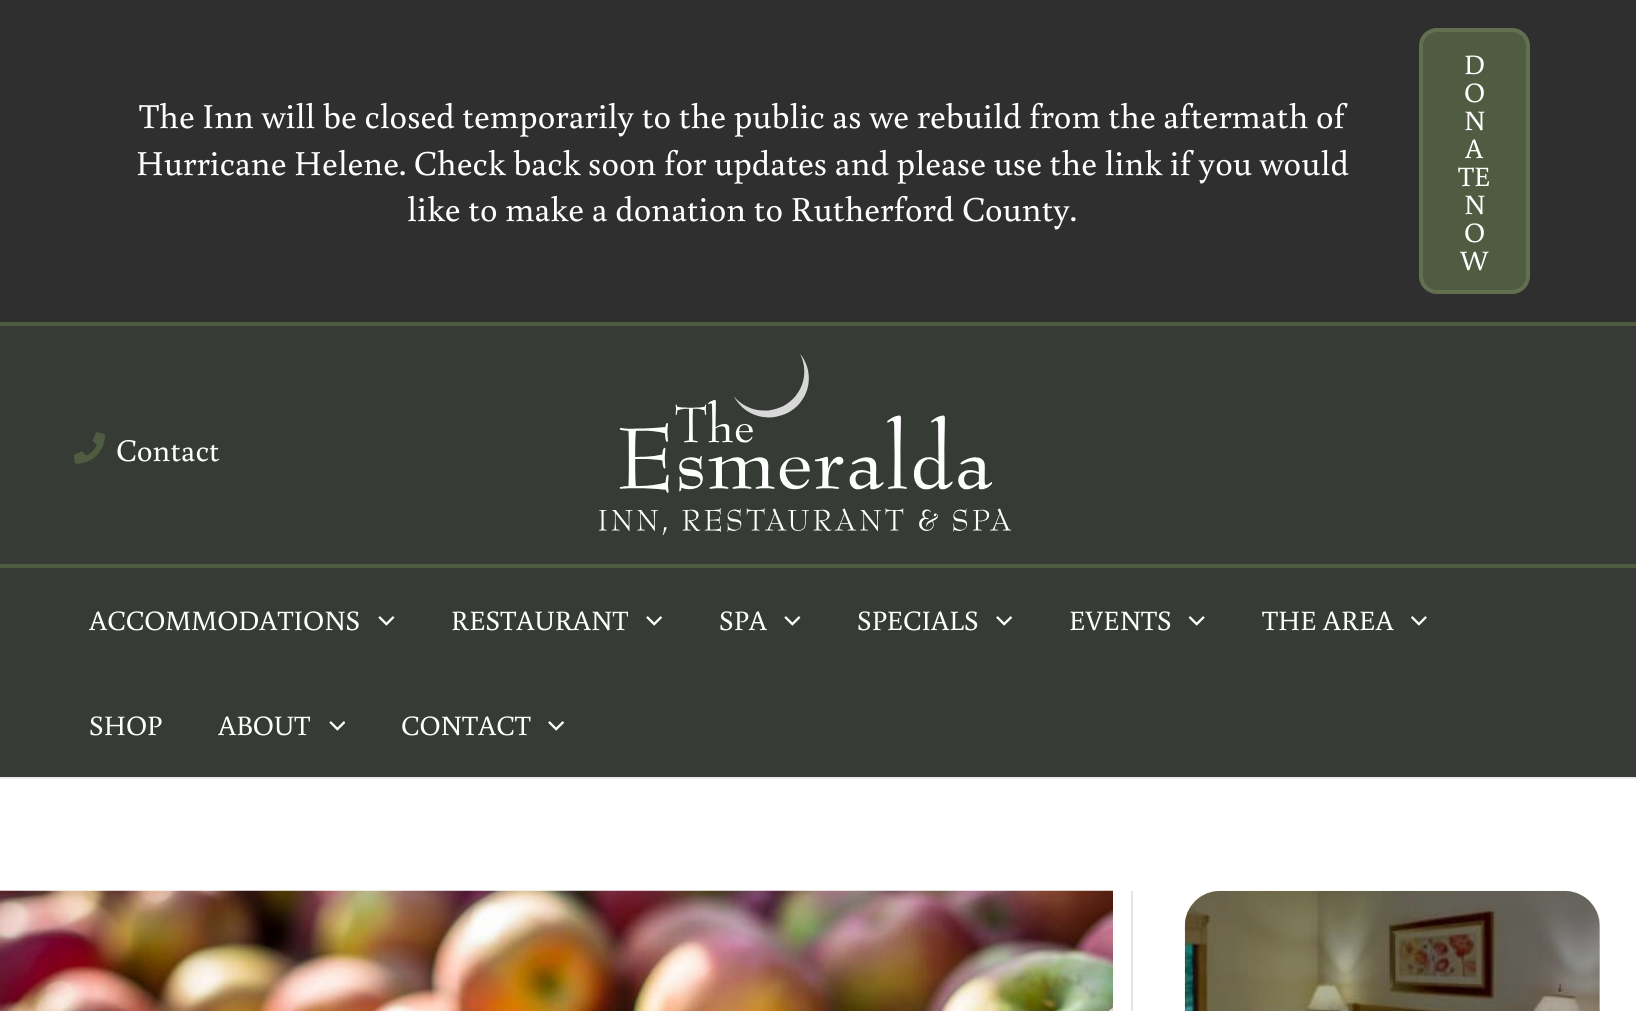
import math
import cairo


def use_color(cr, r, g, b):
  cr.set_source_rgb(r / 255, g / 255, b / 255)

def text(cr, x, y, s, family, size, color, bold=False, italic=False):
  cr.select_font_face(family, cairo.FONT_SLANT_ITALIC if italic else cairo.FONT_SLANT_NORMAL, cairo.FONT_WEIGHT_BOLD if bold else cairo.FONT_WEIGHT_NORMAL)
  cr.set_font_size(size)
  use_color(cr, *color)
  cr.move_to(x, y)
  cr.show_text(s)

def box(cr, x, y, w, h, *color):
  use_color(cr, *color)
  cr.rectangle(x, y, w, h)
  cr.fill()

def round_rect(cr, x, y, w, h, r):
  cr.new_sub_path()
  for i, (u, v) in enumerate([(x + w - r, y + h - r), (x + r, y + h - r), (x + r, y + r), (x + w - r, y + r)]):
    cr.arc(u, v, r, i * math.pi / 2, (i + 1) * math.pi / 2)
  cr.close_path()

def picture(cr, path, x, y, w, h):
  cr.save()
  cr.set_source_surface(cairo.ImageSurface.create_from_png(path), x, y)
  cr.rectangle(x, y, w, h)
  cr.fill()
  cr.restore()

def draw(cr):
  use_color(cr, 255, 255, 255)
  cr.paint()
  box(cr, 0, 0, 1636, 322, 47, 47, 47)
  box(cr, 0, 322, 1636, 4, 79, 92, 65)
  round_rect(cr, 1421, 30, 107, 262, 16)
  cr.fill_preserve()
  use_color(cr, 98, 112, 81)
  cr.set_line_width(4)
  cr.stroke()
  box(cr, 0, 326, 1636, 238, 54, 59, 53)
  box(cr, 0, 564, 1636, 4, 79, 92, 65)
  picture(cr, "img_01.png", 74, 432, 31, 32)
  picture(cr, "img_02.png", 599, 354, 413, 182)
  box(cr, 0, 568, 1636, 209, 54, 59, 53)
  box(cr, 0, 777, 1636, 2, 234, 234, 234)
  picture(cr, "img_03.png", 378, 616, 17, 10)
  picture(cr, "img_04.png", 646, 616, 17, 10)
  picture(cr, "img_03.png", 784, 616, 17, 10)
  picture(cr, "img_04.png", 996, 616, 17, 10)
  picture(cr, "img_05.png", 1188, 616, 17, 10)
  picture(cr, "img_06.png", 1411, 616, 16, 10)
  picture(cr, "img_07.png", 329, 721, 16, 10)
  picture(cr, "img_04.png", 548, 721, 17, 10)
  box(cr, 1131, 891, 2, 120, 229, 229, 229)
  picture(cr, "img_08.png", 0, 890, 1113, 121)
  picture(cr, "img_09.png", 1184, 890, 416, 121)
  cr.set_source_rgba(0, 0, 0, 0.3)
  round_rect(cr, 1185, 891, 415, 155, 35)
  cr.fill()
  text(cr, 139, 128, "The Inn will be closed temporarily to the public as we rebuild from the aftermath of", "Buenard", 35, (255, 255, 255))
  text(cr, 136, 175, "Hurricane Helene. Check back soon for updates and please use the link if you would", "Buenard", 35, (255, 255, 255))
  text(cr, 407, 221, "like to make a donation to Rutherford County.", "Buenard", 35, (255, 255, 255))
  text(cr, 1464, 74, "D", "Buenard", 28, (255, 255, 255))
  text(cr, 1464, 102, "O", "Buenard", 28, (255, 255, 255))
  text(cr, 1464, 130, "N", "Buenard", 28, (255, 255, 255))
  text(cr, 1465, 158, "A", "Buenard", 28, (255, 255, 255))
  text(cr, 1458, 186, "TE", "Buenard", 28, (255, 255, 255))
  text(cr, 1464, 214, "N", "Buenard", 28, (255, 255, 255))
  text(cr, 1464, 242, "O", "Buenard", 28, (255, 255, 255))
  text(cr, 1460, 270, "W", "Buenard", 28, (255, 255, 255))
  text(cr, 116, 461, "Contact", "Buenard", 31.5, (255, 255, 255))
  text(cr, 89, 630, "ACCOMMODATIONS", "Buenard", 28, (255, 255, 255))
  text(cr, 451, 630, "RESTAURANT", "Buenard", 28, (255, 255, 255))
  text(cr, 719, 630, "SPA", "Buenard", 28, (255, 255, 255))
  text(cr, 857, 630, "SPECIALS", "Buenard", 28, (255, 255, 255))
  text(cr, 1069, 630, "EVENTS", "Buenard", 28, (255, 255, 255))
  text(cr, 1262, 630, "THE AREA", "Buenard", 28, (255, 255, 255))
  text(cr, 89, 735, "SHOP", "Buenard", 28, (255, 255, 255))
  text(cr, 218, 735, "ABOUT", "Buenard", 28, (255, 255, 255))
  text(cr, 401, 735, "CONTACT", "Buenard", 28, (255, 255, 255))


surface = cairo.ImageSurface(cairo.FORMAT_RGB24, 1636, 1011)
cr = cairo.Context(surface)
options = cairo.FontOptions()
options.set_hint_metrics(cairo.HINT_METRICS_OFF)
options.set_hint_style(cairo.HINT_STYLE_NONE)
cr.set_font_options(options)
cr.set_miter_limit(4)
draw(cr)
surface.write_to_png("out.png")
